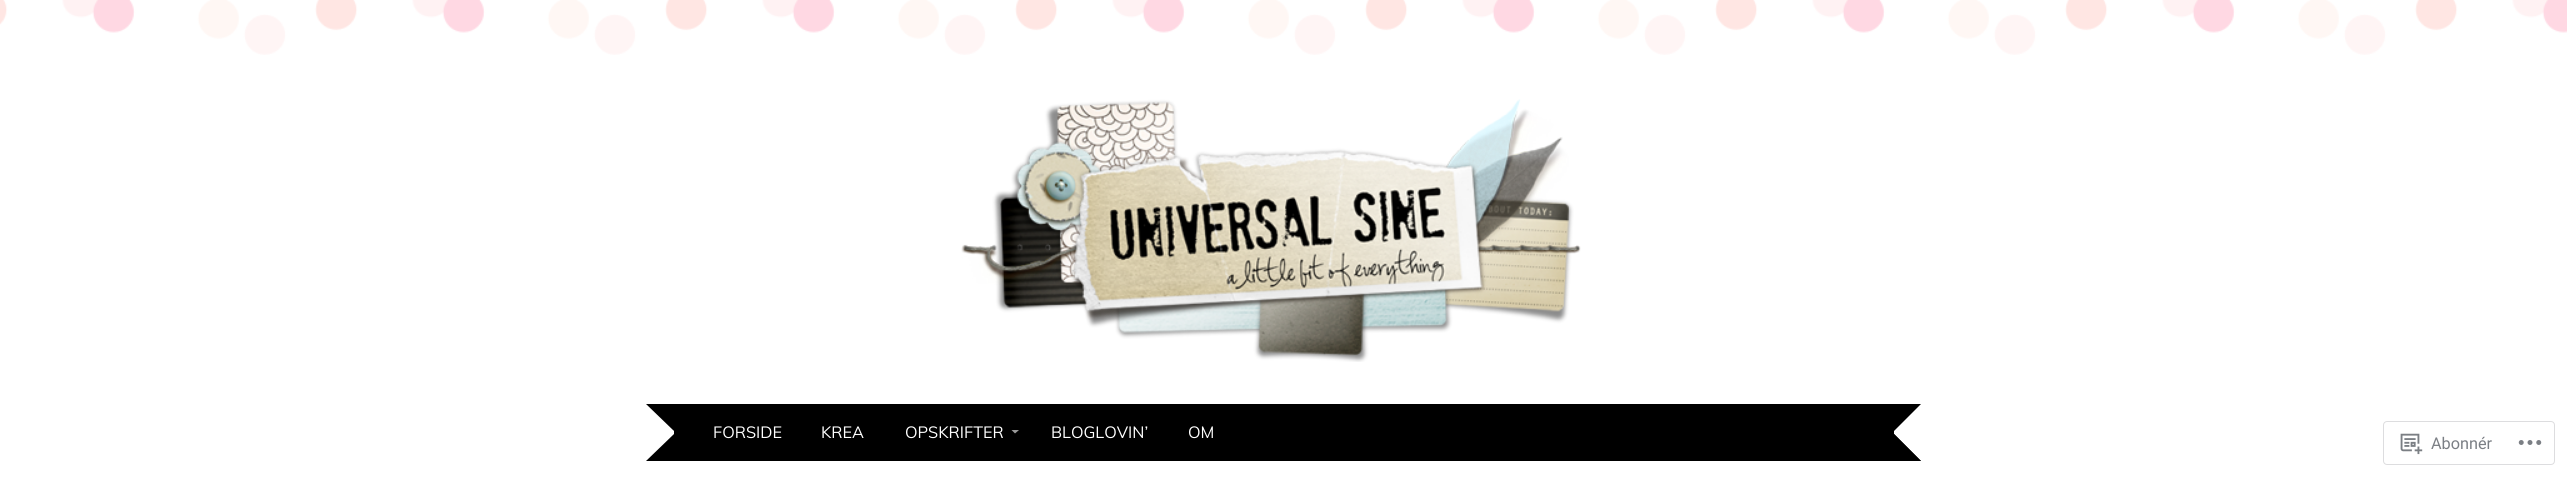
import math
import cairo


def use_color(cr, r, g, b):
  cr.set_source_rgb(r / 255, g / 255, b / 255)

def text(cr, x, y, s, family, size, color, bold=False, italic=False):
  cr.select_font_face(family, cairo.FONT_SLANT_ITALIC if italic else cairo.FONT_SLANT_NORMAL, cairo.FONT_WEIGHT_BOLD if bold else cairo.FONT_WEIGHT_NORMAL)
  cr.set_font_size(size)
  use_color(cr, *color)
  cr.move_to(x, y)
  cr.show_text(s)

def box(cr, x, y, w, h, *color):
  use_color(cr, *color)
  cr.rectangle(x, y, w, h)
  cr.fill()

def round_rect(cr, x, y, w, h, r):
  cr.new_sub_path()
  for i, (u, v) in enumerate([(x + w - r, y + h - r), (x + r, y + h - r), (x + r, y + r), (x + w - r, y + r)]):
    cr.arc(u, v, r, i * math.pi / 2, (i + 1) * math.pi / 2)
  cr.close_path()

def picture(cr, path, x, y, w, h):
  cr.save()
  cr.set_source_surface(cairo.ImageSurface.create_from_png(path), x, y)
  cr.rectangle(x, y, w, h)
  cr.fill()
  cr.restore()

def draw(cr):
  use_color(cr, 255, 255, 255)
  cr.paint()
  picture(cr, "img_01.png", 0, 0, 2567, 55)
  picture(cr, "img_02.png", 961, 99, 620, 263)
  box(cr, 646, 404, 1275, 57, 0, 0, 0)
  use_color(cr, 255, 255, 255)
  cr.new_path()
  cr.move_to(646, 461)
  cr.line_to(646, 404)
  cr.line_to(674, 431)
  cr.line_to(674, 434)
  cr.close_path()
  cr.fill()
  use_color(cr, 153, 153, 153)
  cr.new_path()
  cr.move_to(1011.5, 430)
  cr.line_to(1019, 430)
  cr.line_to(1015, 433.5)
  cr.close_path()
  cr.fill()
  use_color(cr, 255, 255, 255)
  cr.new_path()
  cr.move_to(1921, 404)
  cr.line_to(1921, 461)
  cr.line_to(1894, 434)
  cr.line_to(1894, 431)
  cr.close_path()
  cr.fill()
  use_color(cr, 0, 0, 0)
  cr.new_path()
  cr.move_to(1921, 461)
  cr.line_to(1864, 461)
  cr.line_to(1894, 434)
  cr.close_path()
  cr.fill()
  round_rect(cr, 2383.5, 421.5, 171, 43, 3.5)
  use_color(cr, 221, 221, 223)
  cr.set_line_width(1)
  cr.stroke()
  picture(cr, "img_03.png", 2400, 433, 23, 22)
  picture(cr, "img_04.png", 2518, 440, 24, 5)
  text(cr, 713, 438, "FORSIDE", "Muli", 16.25, (255, 255, 255))
  text(cr, 821, 438, "KREA", "Muli", 16.25, (255, 255, 255))
  text(cr, 905, 438, "OPSKRIFTER", "Muli", 16.25, (255, 255, 255))
  text(cr, 1051, 438, "BLOGLOVIN’", "Muli", 16.25, (255, 255, 255))
  text(cr, 1188, 438, "OM", "Muli", 16.25, (255, 255, 255))
  text(cr, 2431, 449, "Abonnér", "Roboto", 16.25, (123, 127, 133))


surface = cairo.ImageSurface(cairo.FORMAT_RGB24, 2567, 477)
cr = cairo.Context(surface)
options = cairo.FontOptions()
options.set_hint_metrics(cairo.HINT_METRICS_OFF)
options.set_hint_style(cairo.HINT_STYLE_NONE)
cr.set_font_options(options)
cr.set_miter_limit(4)
draw(cr)
surface.write_to_png("out.png")
